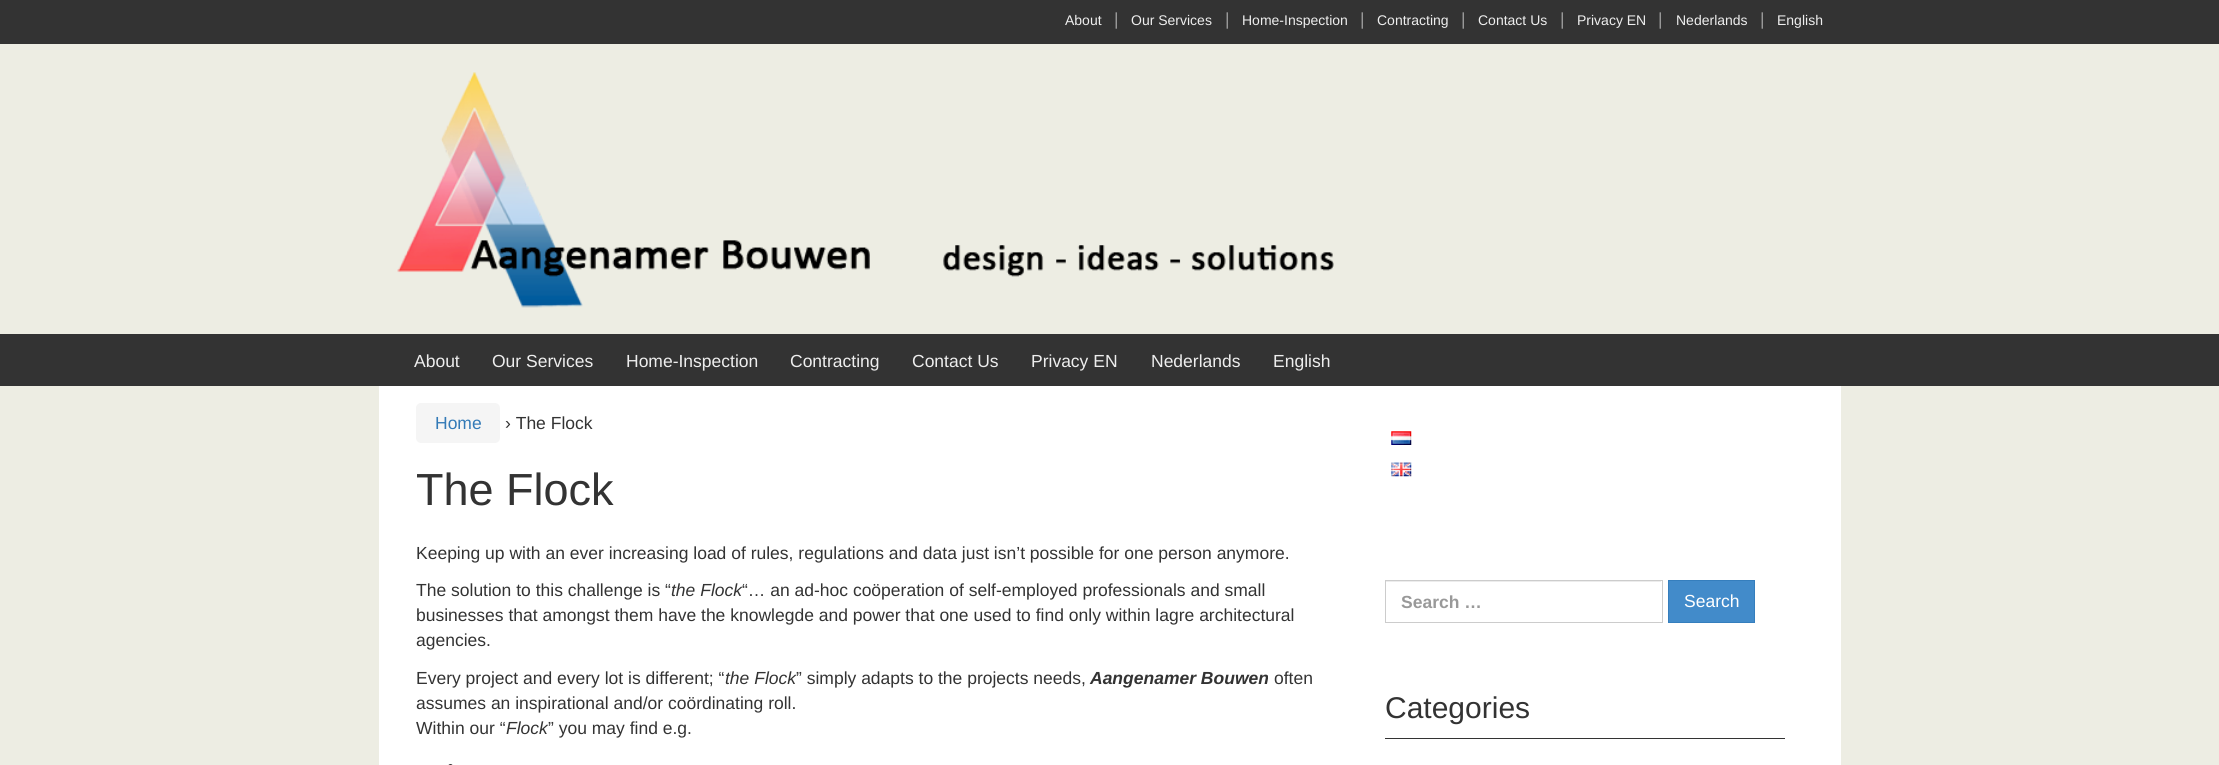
import math
import cairo


def use_color(cr, r, g, b):
  cr.set_source_rgb(r / 255, g / 255, b / 255)

def text(cr, x, y, s, family, size, color, bold=False, italic=False):
  cr.select_font_face(family, cairo.FONT_SLANT_ITALIC if italic else cairo.FONT_SLANT_NORMAL, cairo.FONT_WEIGHT_BOLD if bold else cairo.FONT_WEIGHT_NORMAL)
  cr.set_font_size(size)
  use_color(cr, *color)
  cr.move_to(x, y)
  cr.show_text(s)

def box(cr, x, y, w, h, *color):
  use_color(cr, *color)
  cr.rectangle(x, y, w, h)
  cr.fill()

def round_rect(cr, x, y, w, h, r):
  cr.new_sub_path()
  for i, (u, v) in enumerate([(x + w - r, y + h - r), (x + r, y + h - r), (x + r, y + r), (x + w - r, y + r)]):
    cr.arc(u, v, r, i * math.pi / 2, (i + 1) * math.pi / 2)
  cr.close_path()

def picture(cr, path, x, y, w, h):
  cr.save()
  cr.set_source_surface(cairo.ImageSurface.create_from_png(path), x, y)
  cr.rectangle(x, y, w, h)
  cr.fill()
  cr.restore()

def draw(cr):
  use_color(cr, 237, 237, 227)
  cr.paint()
  box(cr, 0, 0, 2219, 44, 51, 51, 51)
  picture(cr, "img_01.png", 397, 72, 937, 236)
  box(cr, 0, 334, 2219, 52, 51, 51, 51)
  box(cr, 379, 386, 1462, 379, 255, 255, 255)
  use_color(cr, 245, 245, 245)
  round_rect(cr, 416, 403, 84, 40, 5)
  cr.fill()
  use_color(cr, 51, 51, 51)
  round_rect(cr, 448, 764, 5, 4, 2.5)
  cr.fill()
  picture(cr, "img_02.png", 1391, 431, 21, 14)
  picture(cr, "img_03.png", 1391, 462, 21, 15)
  box(cr, 1386, 581, 275, 1, 236, 236, 236)
  cr.rectangle(1385.5, 580.5, 277, 42)
  use_color(cr, 204, 204, 204)
  cr.set_line_width(1)
  cr.stroke()
  use_color(cr, 66, 139, 202)
  cr.rectangle(1668.5, 580.5, 86, 42)
  cr.fill_preserve()
  use_color(cr, 53, 126, 189)
  cr.stroke()
  box(cr, 1385, 738, 400, 1, 51, 51, 51)
  text(cr, 1065, 25, "About", "Liberation Sans", 14, (238, 238, 238))
  text(cr, 1114, 25, "|", "Liberation Sans", 17.5, (153, 153, 153))
  text(cr, 1131, 25, "Our Services", "Liberation Sans", 14, (238, 238, 238))
  text(cr, 1225, 25, "|", "Liberation Sans", 17.5, (153, 153, 153))
  text(cr, 1242, 25, "Home-Inspection", "Liberation Sans", 14, (238, 238, 238))
  text(cr, 1360, 25, "|", "Liberation Sans", 17.5, (153, 153, 153))
  text(cr, 1377, 25, "Contracting", "Liberation Sans", 14, (238, 238, 238))
  text(cr, 1461, 25, "|", "Liberation Sans", 17.5, (153, 153, 153))
  text(cr, 1478, 25, "Contact Us", "Liberation Sans", 14, (238, 238, 238))
  text(cr, 1560, 25, "|", "Liberation Sans", 17.5, (153, 153, 153))
  text(cr, 1577, 25, "Privacy EN", "Liberation Sans", 14, (238, 238, 238))
  text(cr, 1658, 25, "|", "Liberation Sans", 17.5, (153, 153, 153))
  text(cr, 1676, 25, "Nederlands", "Liberation Sans", 14, (238, 238, 238))
  text(cr, 1760, 25, "|", "Liberation Sans", 17.5, (153, 153, 153))
  text(cr, 1777, 25, "English", "Liberation Sans", 14, (238, 238, 238))
  text(cr, 414, 367, "About", "Liberation Sans", 17.5, (238, 238, 238))
  text(cr, 492, 367, "Our Services", "Liberation Sans", 17.5, (238, 238, 238))
  text(cr, 626, 367, "Home-Inspection", "Liberation Sans", 17.5, (238, 238, 238))
  text(cr, 790, 367, "Contracting", "Liberation Sans", 17.5, (238, 238, 238))
  text(cr, 912, 367, "Contact Us", "Liberation Sans", 17.5, (238, 238, 238))
  text(cr, 1031, 367, "Privacy EN", "Liberation Sans", 17.5, (238, 238, 238))
  text(cr, 1151, 367, "Nederlands", "Liberation Sans", 17.5, (238, 238, 238))
  text(cr, 1273, 367, "English", "Liberation Sans", 17.5, (238, 238, 238))
  text(cr, 435, 429, "Home", "Liberation Sans", 17.5, (51, 122, 183))
  text(cr, 505, 429, "› The Flock", "Liberation Sans", 17.5, (51, 51, 51))
  text(cr, 416, 505, "The Flock", "Liberation Sans", 45, (51, 51, 51))
  text(cr, 416, 559, "Keeping up with an ever increasing load of rules, regulations and data just isn’t possible for one person anymore.", "Liberation Sans", 17.5, (51, 51, 51))
  text(cr, 416, 596, "The solution to this challenge is “", "Liberation Sans", 17.5, (51, 51, 51))
  text(cr, 671, 596, "the Flock", "Liberation Sans", 17.5, (51, 51, 51), italic=True)
  text(cr, 742, 596, "“… an ad-hoc coöperation of self-employed professionals and small", "Liberation Sans", 17.5, (51, 51, 51))
  text(cr, 416, 621, "businesses that amongst them have the knowlegde and power that one used to find only within lagre architectural", "Liberation Sans", 17.5, (51, 51, 51))
  text(cr, 416, 646, "agencies.", "Liberation Sans", 17.5, (51, 51, 51))
  text(cr, 416, 684, "Every project and every lot is different; “", "Liberation Sans", 17.5, (51, 51, 51))
  text(cr, 725, 684, "the Flock", "Liberation Sans", 17.5, (51, 51, 51), italic=True)
  text(cr, 796, 684, "” simply adapts to the projects needs,", "Liberation Sans", 17.5, (51, 51, 51))
  text(cr, 1090, 684, "Aangenamer Bouwen", "Liberation Sans", 17.5, (51, 51, 51), bold=True, italic=True)
  text(cr, 1274, 684, "often", "Liberation Sans", 17.5, (51, 51, 51))
  text(cr, 416, 709, "assumes an inspirational and/or coördinating roll.", "Liberation Sans", 17.5, (51, 51, 51))
  text(cr, 416, 734, "Within our “", "Liberation Sans", 17.5, (51, 51, 51))
  text(cr, 506, 734, "Flock", "Liberation Sans", 17.5, (51, 51, 51), italic=True)
  text(cr, 548, 734, "” you may find e.g.", "Liberation Sans", 17.5, (51, 51, 51))
  text(cr, 1401, 608, "Search …", "Liberation Sans", 17.5, (153, 153, 153), bold=True)
  text(cr, 1684, 607, "Search", "Liberation Sans", 17.5, (255, 255, 255))
  text(cr, 1385, 718, "Categories", "Liberation Sans", 30, (51, 51, 51))


surface = cairo.ImageSurface(cairo.FORMAT_RGB24, 2219, 765)
cr = cairo.Context(surface)
options = cairo.FontOptions()
options.set_hint_metrics(cairo.HINT_METRICS_OFF)
options.set_hint_style(cairo.HINT_STYLE_NONE)
cr.set_font_options(options)
cr.set_miter_limit(4)
draw(cr)
surface.write_to_png("out.png")
